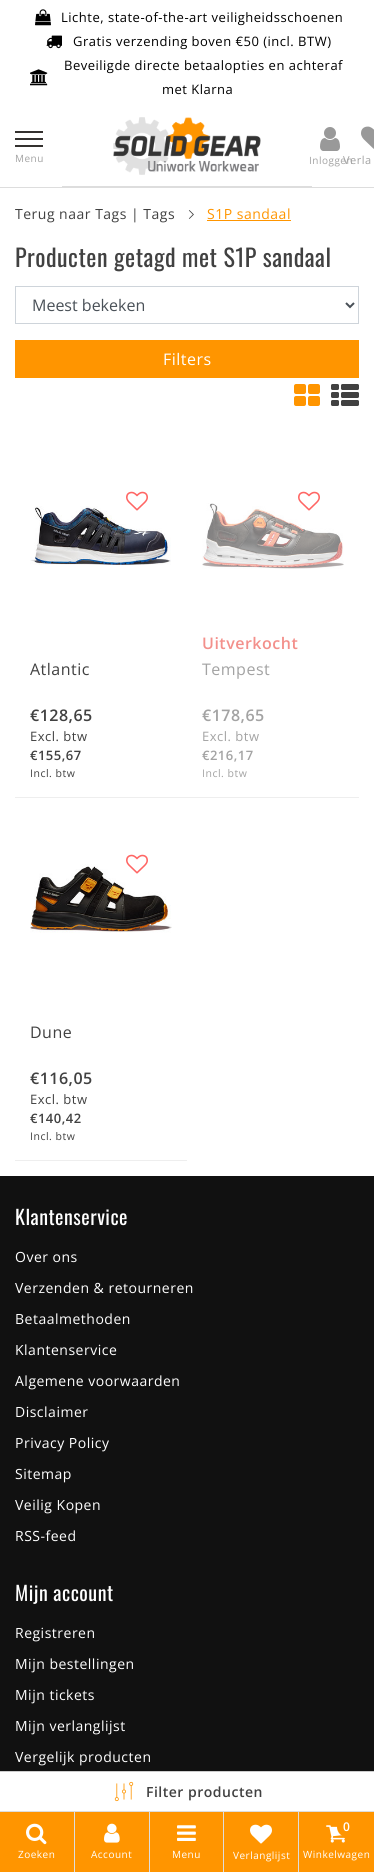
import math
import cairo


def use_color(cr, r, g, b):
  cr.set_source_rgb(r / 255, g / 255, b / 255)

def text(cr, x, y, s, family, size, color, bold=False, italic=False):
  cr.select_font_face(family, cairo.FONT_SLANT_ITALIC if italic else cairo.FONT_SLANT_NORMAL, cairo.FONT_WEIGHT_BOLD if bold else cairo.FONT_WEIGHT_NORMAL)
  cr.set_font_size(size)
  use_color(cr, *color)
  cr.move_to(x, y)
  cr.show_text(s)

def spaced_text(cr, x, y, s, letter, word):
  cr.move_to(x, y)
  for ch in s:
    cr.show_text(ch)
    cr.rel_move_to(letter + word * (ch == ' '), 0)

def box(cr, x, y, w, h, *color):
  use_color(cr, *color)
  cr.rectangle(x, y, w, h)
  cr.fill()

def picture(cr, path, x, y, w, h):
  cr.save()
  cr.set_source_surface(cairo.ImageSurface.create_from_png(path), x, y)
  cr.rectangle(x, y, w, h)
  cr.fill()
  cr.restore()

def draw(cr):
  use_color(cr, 255, 255, 255)
  cr.paint()
  box(cr, 0, 187, 374, 1, 221, 221, 221)
  picture(cr, "img_01.png", 35, 9, 16, 17)
  picture(cr, "img_02.png", 46, 35, 16, 14)
  picture(cr, "img_03.png", 30, 69, 18, 17)
  box(cr, 15, 131, 28, 2, 52, 49, 47)
  box(cr, 15, 138, 28, 2, 52, 49, 47)
  box(cr, 15, 145, 28, 2, 52, 49, 47)
  box(cr, 62, 186, 250, 1, 221, 221, 221)
  picture(cr, "img_04.png", 113, 117, 148, 58)
  picture(cr, "img_05.png", 320, 127, 20, 24)
  picture(cr, "img_06.png", 361, 126, 13, 23)
  picture(cr, "img_07.png", 188, 210, 6, 9)
  box(cr, 207, 220, 84, 1, 255, 149, 0)
  cr.rectangle(15.5, 286.5, 343, 37)
  use_color(cr, 206, 212, 218)
  cr.set_line_width(1)
  cr.stroke()
  cr.new_path()
  cr.move_to(346, 303)
  cr.line_to(350, 307)
  cr.line_to(354, 303)
  use_color(cr, 73, 80, 87)
  cr.set_line_width(2)
  cr.stroke()
  box(cr, 15, 340, 344, 38, 255, 149, 0)
  picture(cr, "img_08.png", 294, 384, 26, 22)
  picture(cr, "img_09.png", 331, 384, 28, 22)
  box(cr, 15, 797, 344, 1, 238, 238, 238)
  picture(cr, "img_11.png", 30, 506, 141, 59)
  picture(cr, "img_10.png", 126, 491, 22, 20)
  picture(cr, "img_12.png", 202, 503, 142, 66)
  picture(cr, "img_10.png", 298, 491, 22, 20)
  box(cr, 15, 1160, 172, 1, 238, 238, 238)
  picture(cr, "img_13.png", 30, 864, 142, 69)
  picture(cr, "img_10.png", 126, 854, 22, 20)
  box(cr, 0, 1176, 374, 595, 17, 17, 17)
  box(cr, 0, 1771, 374, 1, 204, 204, 204)
  picture(cr, "img_14.png", 114, 1781, 20, 21)
  box(cr, 0, 1812, 74, 60, 255, 149, 0)
  box(cr, 0, 1811, 374, 1, 221, 221, 221)
  box(cr, 74, 1811, 1, 61, 221, 221, 221)
  picture(cr, "img_15.png", 26, 1823, 21, 22)
  box(cr, 75, 1812, 74, 60, 255, 149, 0)
  box(cr, 149, 1811, 1, 61, 221, 221, 221)
  picture(cr, "img_16.png", 104, 1823, 16, 20)
  box(cr, 150, 1812, 73, 60, 255, 149, 0)
  box(cr, 223, 1811, 1, 61, 221, 221, 221)
  picture(cr, "img_17.png", 177, 1825, 19, 16)
  box(cr, 224, 1812, 74, 60, 255, 149, 0)
  box(cr, 298, 1811, 1, 61, 221, 221, 221)
  picture(cr, "img_18.png", 250, 1824, 22, 20)
  box(cr, 299, 1812, 75, 60, 255, 149, 0)
  picture(cr, "img_19.png", 326, 1825, 19, 18)
  cr.arc(347, 1827, 10, 0, 2 * math.pi)
  cr.fill()
  cr.select_font_face("Open Sans")
  cr.set_font_size(13)
  use_color(cr, 0, 0, 0)
  spaced_text(cr, 61, 22, "Lichte, state-of-the-art veiligheidsschoenen", 0.5, 0)
  spaced_text(cr, 73, 46, "Gratis verzending boven €50 (incl. BTW)", 0.5, 0)
  spaced_text(cr, 64, 70, "Beveiligde directe betaalopties en achteraf", 0.5, 0)
  spaced_text(cr, 162, 94, "met Klarna", 0.5, 0)
  cr.set_font_size(10)
  use_color(cr, 163, 163, 163)
  spaced_text(cr, 15, 162, "Menu", 0.5, 0)
  spaced_text(cr, 309, 164, "Inloggen", 0.5, 0)
  cr.set_font_size(11)
  spaced_text(cr, 343, 164, "Verla", 0.5, 0)
  cr.set_font_size(14)
  use_color(cr, 65, 65, 65)
  spaced_text(cr, 15, 219, "Terug naar Tags | Tags", 0.5, 0)
  use_color(cr, 255, 149, 0)
  spaced_text(cr, 207, 219, "S1P sandaal", 0.5, 0)
  cr.select_font_face("Oswald")
  cr.set_font_size(24)
  use_color(cr, 65, 65, 65)
  spaced_text(cr, 15, 267, "Producten getagd met S1P sandaal", 0.5, 0)
  text(cr, 32, 311, "Meest bekeken", "Open Sans", 16, (73, 80, 87))
  use_color(cr, 255, 255, 255)
  spaced_text(cr, 163, 365, "Filters", 0.5, 0)
  use_color(cr, 65, 65, 65)
  spaced_text(cr, 30, 675, "Atlantic", 0.5, 0)
  cr.select_font_face("Open Sans SemiBold")
  spaced_text(cr, 30, 721, "€128,65", 0.5, 0)
  cr.select_font_face("Open Sans")
  cr.set_font_size(13)
  spaced_text(cr, 30, 741, "Excl. btw", 0.5, 0)
  cr.select_font_face("Open Sans SemiBold")
  spaced_text(cr, 30, 760, "€155,67", 0.5, 0)
  cr.select_font_face("Open Sans")
  cr.set_font_size(10.5)
  spaced_text(cr, 30, 777, "Incl. btw", 0.5, 0)
  cr.select_font_face("Open Sans SemiBold")
  cr.set_font_size(16)
  use_color(cr, 243, 144, 139)
  spaced_text(cr, 202, 649, "Uitverkocht", 0.5, 0)
  cr.select_font_face("Open Sans")
  use_color(cr, 163, 163, 163)
  spaced_text(cr, 202, 675, "Tempest", 0.5, 0)
  cr.select_font_face("Open Sans SemiBold")
  spaced_text(cr, 202, 721, "€178,65", 0.5, 0)
  cr.select_font_face("Open Sans")
  cr.set_font_size(13)
  spaced_text(cr, 202, 741, "Excl. btw", 0.5, 0)
  cr.select_font_face("Open Sans SemiBold")
  spaced_text(cr, 202, 760, "€216,17", 0.5, 0)
  cr.select_font_face("Open Sans")
  cr.set_font_size(10.5)
  spaced_text(cr, 202, 777, "Incl. btw", 0.5, 0)
  cr.set_font_size(16)
  use_color(cr, 65, 65, 65)
  spaced_text(cr, 30, 1038, "Dune", 0.5, 0)
  cr.select_font_face("Open Sans SemiBold")
  spaced_text(cr, 30, 1084, "€116,05", 0.5, 0)
  cr.select_font_face("Open Sans")
  cr.set_font_size(13)
  spaced_text(cr, 30, 1104, "Excl. btw", 0.5, 0)
  cr.select_font_face("Open Sans SemiBold")
  spaced_text(cr, 30, 1123, "€140,42", 0.5, 0)
  cr.select_font_face("Open Sans")
  cr.set_font_size(10.5)
  spaced_text(cr, 30, 1140, "Incl. btw", 0.5, 0)
  cr.select_font_face("Oswald")
  cr.set_font_size(20)
  use_color(cr, 255, 255, 255)
  spaced_text(cr, 15, 1225, "Klantenservice", 0.5, 0)
  cr.select_font_face("Open Sans")
  cr.set_font_size(14)
  spaced_text(cr, 15, 1262, "Over ons", 0.5, 0)
  spaced_text(cr, 15, 1293, "Verzenden & retourneren", 0.5, 0)
  spaced_text(cr, 15, 1324, "Betaalmethoden", 0.5, 0)
  spaced_text(cr, 15, 1355, "Klantenservice", 0.5, 0)
  spaced_text(cr, 15, 1386, "Algemene voorwaarden", 0.5, 0)
  spaced_text(cr, 15, 1417, "Disclaimer", 0.5, 0)
  spaced_text(cr, 15, 1448, "Privacy Policy", 0.5, 0)
  spaced_text(cr, 15, 1479, "Sitemap", 0.5, 0)
  spaced_text(cr, 15, 1510, "Veilig Kopen", 0.5, 0)
  spaced_text(cr, 15, 1541, "RSS-feed", 0.5, 0)
  cr.select_font_face("Oswald")
  cr.set_font_size(20)
  spaced_text(cr, 15, 1601, "Mijn account", 0.5, 0)
  cr.select_font_face("Open Sans")
  cr.set_font_size(14)
  spaced_text(cr, 15, 1638, "Registreren", 0.5, 0)
  spaced_text(cr, 15, 1669, "Mijn bestellingen", 0.5, 0)
  spaced_text(cr, 15, 1700, "Mijn tickets", 0.5, 0)
  spaced_text(cr, 15, 1731, "Mijn verlanglijst", 0.5, 0)
  spaced_text(cr, 15, 1762, "Vergelijk producten", 0.5, 0)
  cr.select_font_face("Open Sans SemiBold")
  use_color(cr, 65, 65, 65)
  spaced_text(cr, 146, 1797, "Filter producten", 0.5, 0)
  cr.select_font_face("Open Sans")
  cr.set_font_size(10)
  use_color(cr, 255, 255, 255)
  spaced_text(cr, 18, 1858, "Zoeken", 0.5, 0)
  spaced_text(cr, 91, 1858, "Account", 0.5, 0)
  spaced_text(cr, 172, 1858, "Menu", 0.5, 0)
  spaced_text(cr, 233, 1859, "Verlanglijst", 0.5, 0)
  cr.select_font_face("Open Sans SemiBold")
  cr.set_font_size(12)
  spaced_text(cr, 343, 1831, "0", 0.5, 0)
  cr.select_font_face("Open Sans")
  cr.set_font_size(10)
  spaced_text(cr, 303, 1858, "Winkelwagen", 0.5, 0)


surface = cairo.ImageSurface(cairo.FORMAT_RGB24, 374, 1872)
cr = cairo.Context(surface)
options = cairo.FontOptions()
options.set_hint_metrics(cairo.HINT_METRICS_OFF)
options.set_hint_style(cairo.HINT_STYLE_NONE)
cr.set_font_options(options)
cr.set_miter_limit(4)
draw(cr)
surface.write_to_png("out.png")
